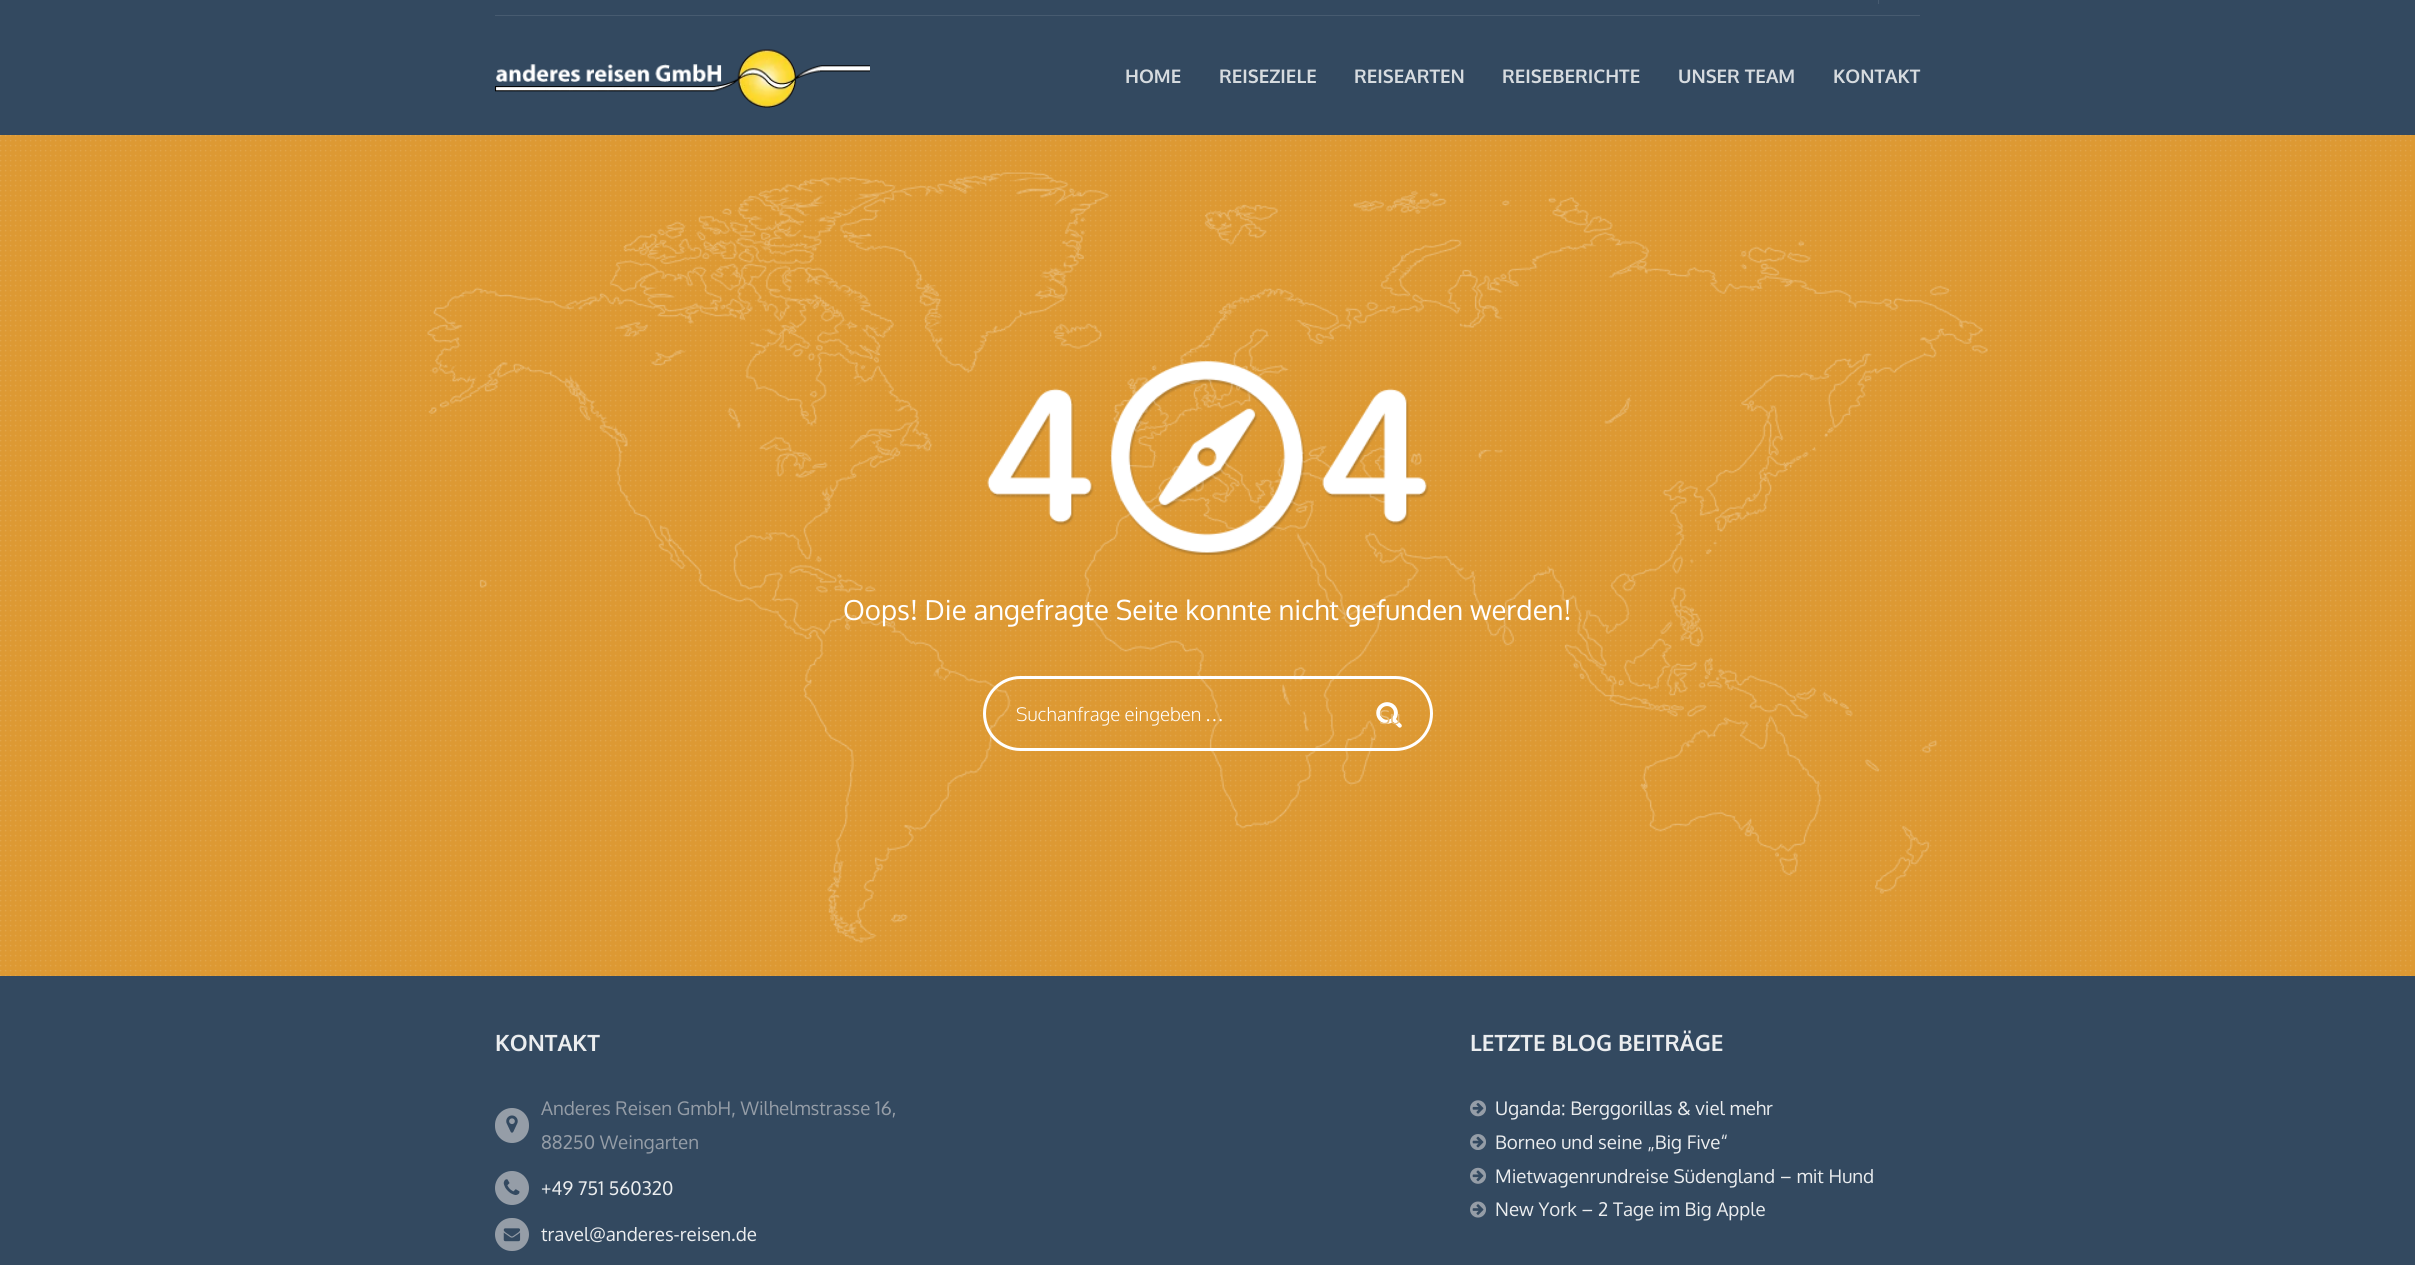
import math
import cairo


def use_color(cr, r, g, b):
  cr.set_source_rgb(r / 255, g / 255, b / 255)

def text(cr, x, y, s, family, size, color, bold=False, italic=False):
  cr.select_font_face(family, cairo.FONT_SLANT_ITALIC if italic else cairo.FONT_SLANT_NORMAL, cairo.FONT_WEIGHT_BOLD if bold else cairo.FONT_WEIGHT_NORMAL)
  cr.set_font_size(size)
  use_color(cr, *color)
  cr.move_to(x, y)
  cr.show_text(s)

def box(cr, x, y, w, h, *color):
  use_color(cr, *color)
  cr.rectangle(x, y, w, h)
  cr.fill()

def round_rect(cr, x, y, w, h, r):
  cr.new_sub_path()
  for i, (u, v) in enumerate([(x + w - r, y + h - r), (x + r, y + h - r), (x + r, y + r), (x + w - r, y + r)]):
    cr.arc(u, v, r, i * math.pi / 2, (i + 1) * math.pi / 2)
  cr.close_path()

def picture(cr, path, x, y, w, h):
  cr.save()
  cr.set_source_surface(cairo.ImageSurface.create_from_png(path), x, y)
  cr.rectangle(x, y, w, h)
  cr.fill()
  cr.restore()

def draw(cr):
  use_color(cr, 51, 73, 96)
  cr.paint()
  box(cr, 1878, 0, 1, 4, 71, 91, 112)
  box(cr, 495, 15, 1425, 1, 71, 91, 112)
  picture(cr, "img_01.png", 495, 49, 375, 59)
  box(cr, 0, 135, 2415, 841, 221, 153, 51)
  picture(cr, "img_02.png", 0, 135, 2412, 841)
  picture(cr, "img_04.png", 987, 361, 442, 194)
  picture(cr, "img_03.png", 427, 172, 1561, 771)
  picture(cr, "img_05.png", 1376, 702, 26, 26)
  round_rect(cr, 984.5, 677.5, 447, 72, 36)
  use_color(cr, 255, 255, 255)
  cr.set_line_width(3)
  cr.stroke()
  use_color(cr, 149, 157, 167)
  round_rect(cr, 495, 1108, 34, 35, 17)
  cr.fill()
  picture(cr, "img_06.png", 506, 1115, 12, 18)
  cr.arc(512, 1188, 17, 0, 2 * math.pi)
  cr.fill()
  picture(cr, "img_07.png", 503, 1179, 17, 16)
  round_rect(cr, 495, 1218, 34, 33, 16.5)
  cr.fill()
  picture(cr, "img_08.png", 503, 1228, 18, 14)
  picture(cr, "img_09.png", 1470, 1100, 16, 17)
  picture(cr, "img_10.png", 1470, 1134, 16, 16)
  picture(cr, "img_11.png", 1470, 1167, 16, 17)
  picture(cr, "img_12.png", 1470, 1201, 16, 17)
  text(cr, 1125, 83, "HOME", "Oxygen", 18.75, (214, 219, 223), bold=True)
  text(cr, 1219, 83, "REISEZIELE", "Oxygen", 18.75, (214, 219, 223), bold=True)
  text(cr, 1354, 83, "REISEARTEN", "Oxygen", 18.75, (214, 219, 223), bold=True)
  text(cr, 1502, 83, "REISEBERICHTE", "Oxygen", 18.75, (214, 219, 223), bold=True)
  text(cr, 1678, 83, "UNSER TEAM", "Oxygen", 18.75, (214, 219, 223), bold=True)
  text(cr, 1833, 83, "KONTAKT", "Oxygen", 18.75, (214, 219, 223), bold=True)
  text(cr, 843, 620, "Oops! Die angefragte Seite konnte nicht gefunden werden!", "Oxygen", 27.5, (255, 255, 255))
  text(cr, 1016, 721, "Suchanfrage eingeben", "Oxygen Light", 18.75, (255, 255, 255))
  text(cr, 1205, 721, "…", "Liberation Serif", 18.75, (255, 255, 255))
  text(cr, 1379, 724, "Su", "Oxygen", 18.75, (232, 187, 119))
  text(cr, 495, 1051, "KONTAKT", "Oxygen", 22.5, (235, 237, 239), bold=True)
  text(cr, 541, 1115, "Anderes Reisen GmbH, Wilhelmstrasse 16,", "Oxygen", 18.75, (149, 157, 167))
  text(cr, 541, 1149, "88250 Weingarten", "Oxygen", 18.75, (149, 157, 167))
  text(cr, 541, 1195, "+49 751 560320", "Oxygen", 18.75, (235, 237, 239))
  text(cr, 541, 1241, "travel@anderes-reisen.de", "Oxygen", 18.75, (235, 237, 239))
  text(cr, 1470, 1051, "LETZTE BLOG BEITRÄGE", "Oxygen", 22.5, (235, 237, 239), bold=True)
  text(cr, 1495, 1115, "Uganda: Berggorillas & viel mehr", "Oxygen", 18.75, (235, 237, 239))
  text(cr, 1495, 1149, "Borneo und seine „Big Five“", "Oxygen", 18.75, (235, 237, 239))
  text(cr, 1495, 1183, "Mietwagenrundreise Südengland – mit Hund", "Oxygen", 18.75, (235, 237, 239))
  text(cr, 1495, 1216, "New York – 2 Tage im Big Apple", "Oxygen", 18.75, (235, 237, 239))


surface = cairo.ImageSurface(cairo.FORMAT_RGB24, 2415, 1265)
cr = cairo.Context(surface)
options = cairo.FontOptions()
options.set_hint_metrics(cairo.HINT_METRICS_OFF)
options.set_hint_style(cairo.HINT_STYLE_NONE)
cr.set_font_options(options)
cr.set_miter_limit(4)
draw(cr)
surface.write_to_png("out.png")
